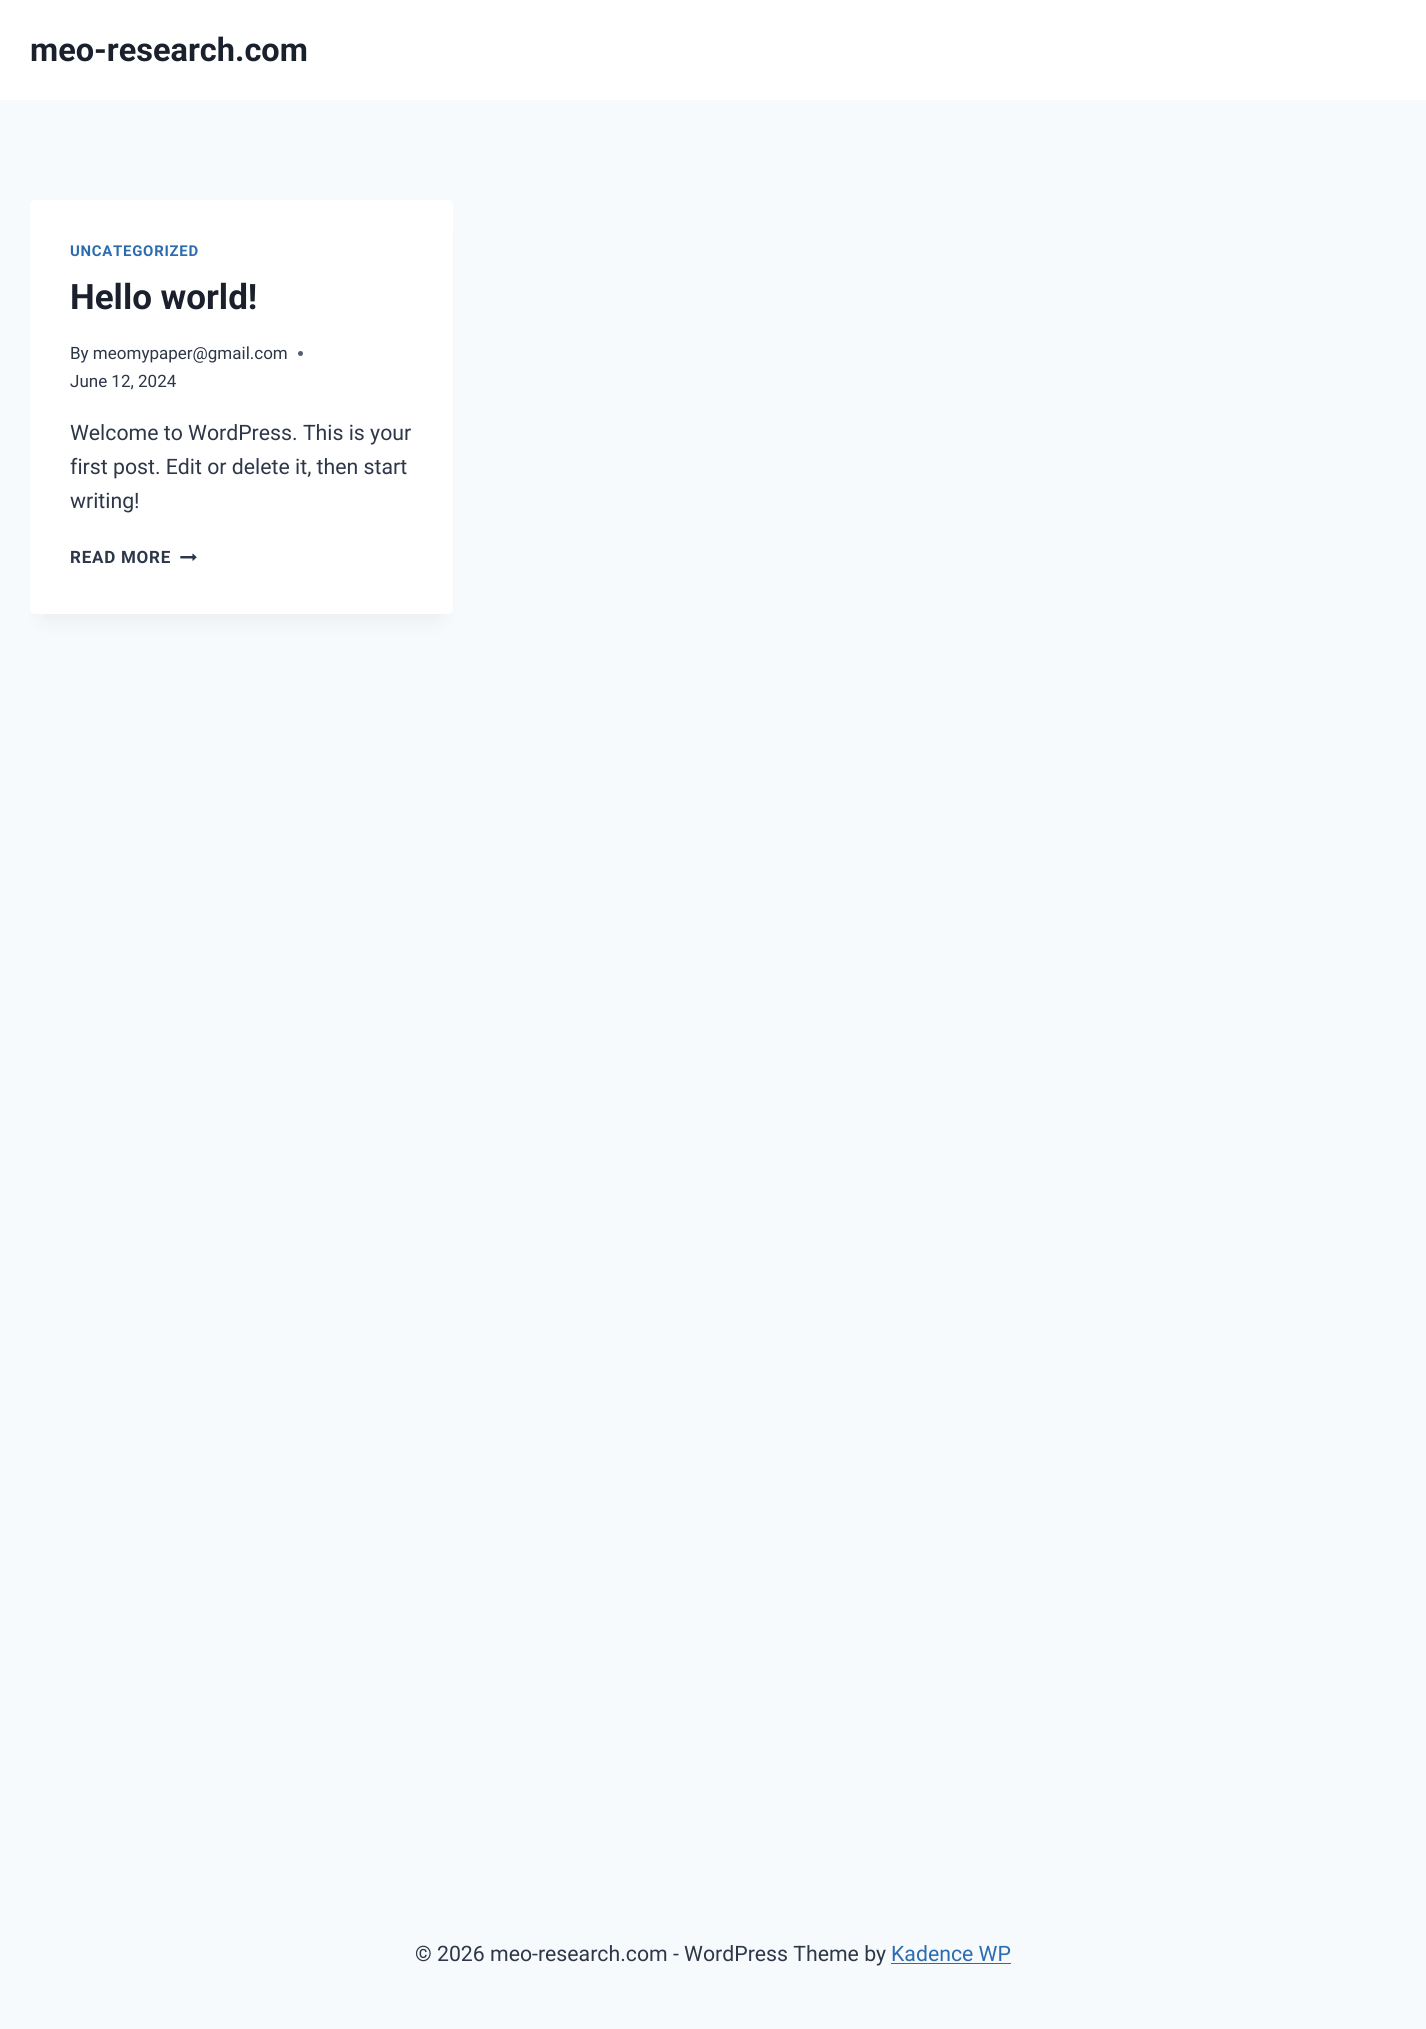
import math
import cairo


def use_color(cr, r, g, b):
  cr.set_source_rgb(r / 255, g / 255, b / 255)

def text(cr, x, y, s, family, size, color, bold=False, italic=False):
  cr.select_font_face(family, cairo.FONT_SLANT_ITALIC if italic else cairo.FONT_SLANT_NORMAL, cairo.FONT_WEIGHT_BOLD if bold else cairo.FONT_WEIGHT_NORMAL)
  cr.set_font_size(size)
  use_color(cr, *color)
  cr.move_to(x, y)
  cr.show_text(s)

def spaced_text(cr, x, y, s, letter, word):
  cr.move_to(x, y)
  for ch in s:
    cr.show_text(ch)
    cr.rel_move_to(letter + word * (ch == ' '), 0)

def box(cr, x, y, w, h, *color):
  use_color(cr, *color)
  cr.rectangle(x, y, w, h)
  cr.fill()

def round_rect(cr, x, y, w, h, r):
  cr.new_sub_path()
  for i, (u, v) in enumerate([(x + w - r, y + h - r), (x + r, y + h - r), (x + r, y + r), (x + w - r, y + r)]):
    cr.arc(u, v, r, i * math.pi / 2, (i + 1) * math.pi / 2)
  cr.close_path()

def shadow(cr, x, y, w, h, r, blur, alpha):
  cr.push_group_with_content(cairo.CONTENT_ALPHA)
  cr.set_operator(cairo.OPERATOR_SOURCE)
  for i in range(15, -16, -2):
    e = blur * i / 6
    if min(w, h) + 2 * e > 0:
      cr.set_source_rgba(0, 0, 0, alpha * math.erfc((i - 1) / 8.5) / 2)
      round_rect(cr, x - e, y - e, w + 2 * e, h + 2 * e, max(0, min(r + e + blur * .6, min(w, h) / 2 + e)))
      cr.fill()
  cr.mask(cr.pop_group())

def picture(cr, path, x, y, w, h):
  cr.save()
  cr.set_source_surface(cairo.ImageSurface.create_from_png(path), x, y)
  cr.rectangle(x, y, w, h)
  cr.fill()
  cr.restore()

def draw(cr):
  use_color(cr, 247, 250, 252)
  cr.paint()
  box(cr, 0, 0, 1426, 100, 255, 255, 255)
  use_color(cr, 0, 0, 0)
  shadow(cr, 43, 231, 397, 389, 0, 9.5, 0.05)
  use_color(cr, 255, 255, 255)
  round_rect(cr, 30, 200, 423, 414, 5)
  cr.fill()
  use_color(cr, 87, 95, 109)
  cr.arc(300.5, 353.5, 2.5, 0, 2 * math.pi)
  cr.fill()
  picture(cr, "img_01.png", 180, 553, 17, 8)
  box(cr, 891, 1963, 120, 1, 43, 108, 176)
  text(cr, 30, 61, "meo-research.com", "Roboto", 32.5, (26, 32, 44), bold=True)
  cr.set_font_size(14.9)
  use_color(cr, 43, 108, 176)
  spaced_text(cr, 70, 256, "UNCATEGORIZED", 0.75, 0)
  text(cr, 70, 309, "Hello world!", "Roboto", 35, (26, 32, 44), bold=True)
  text(cr, 70, 359, "By meomypaper@gmail.com", "Roboto", 17, (45, 55, 72))
  text(cr, 70, 387, "June 12, 2024", "Roboto", 17, (45, 55, 72))
  text(cr, 70, 440, "Welcome to WordPress. This is your", "Roboto", 21.25, (45, 55, 72))
  text(cr, 70, 474, "first post. Edit or delete it, then start", "Roboto", 21.25, (45, 55, 72))
  text(cr, 70, 508, "writing!", "Roboto", 21.25, (45, 55, 72))
  cr.select_font_face("Roboto", cairo.FONT_SLANT_NORMAL, cairo.FONT_WEIGHT_BOLD)
  cr.set_font_size(17)
  spaced_text(cr, 70, 563, "READ MORE", 0.75, 0)
  text(cr, 415, 1961, "© 2026 meo-research.com - WordPress Theme by", "Roboto", 21.25, (45, 55, 72))
  text(cr, 891, 1961, "Kadence WP", "Roboto", 21.25, (43, 108, 176))


surface = cairo.ImageSurface(cairo.FORMAT_RGB24, 1426, 2029)
cr = cairo.Context(surface)
options = cairo.FontOptions()
options.set_hint_metrics(cairo.HINT_METRICS_OFF)
options.set_hint_style(cairo.HINT_STYLE_NONE)
cr.set_font_options(options)
cr.set_miter_limit(4)
draw(cr)
surface.write_to_png("out.png")
